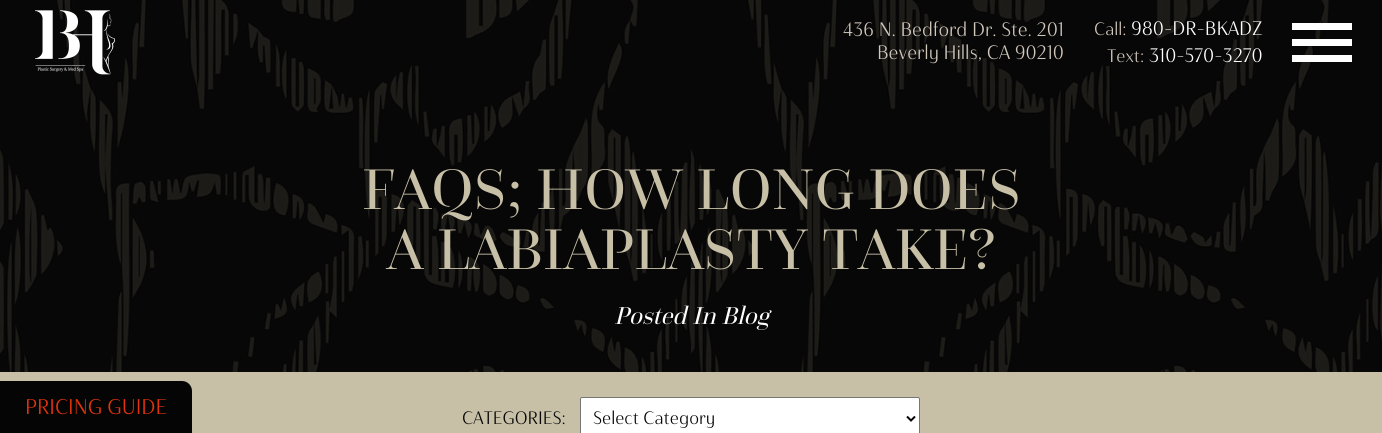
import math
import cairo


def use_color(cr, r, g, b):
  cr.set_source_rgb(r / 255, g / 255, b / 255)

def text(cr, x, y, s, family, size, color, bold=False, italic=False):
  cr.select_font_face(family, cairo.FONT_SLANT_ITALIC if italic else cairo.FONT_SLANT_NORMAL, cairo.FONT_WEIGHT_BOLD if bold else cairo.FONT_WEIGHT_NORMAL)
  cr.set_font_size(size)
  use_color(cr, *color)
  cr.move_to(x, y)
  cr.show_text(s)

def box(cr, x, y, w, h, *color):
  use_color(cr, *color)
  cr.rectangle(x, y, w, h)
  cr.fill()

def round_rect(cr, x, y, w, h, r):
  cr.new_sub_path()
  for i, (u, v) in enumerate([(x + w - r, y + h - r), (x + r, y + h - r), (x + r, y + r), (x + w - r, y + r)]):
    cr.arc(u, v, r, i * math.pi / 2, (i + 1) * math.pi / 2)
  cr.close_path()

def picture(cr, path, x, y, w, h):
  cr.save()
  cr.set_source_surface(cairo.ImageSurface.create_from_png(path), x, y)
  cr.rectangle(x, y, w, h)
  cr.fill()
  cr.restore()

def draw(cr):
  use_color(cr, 199, 192, 167)
  cr.paint()
  box(cr, 0, 0, 1382, 372, 5, 5, 5)
  picture(cr, "img_02.png", 0, 0, 1382, 372)
  picture(cr, "img_01.png", 35, 10, 80, 65)
  box(cr, 1292, 23, 60, 7, 255, 255, 255)
  box(cr, 1292, 39, 60, 7, 255, 255, 255)
  box(cr, 1292, 55, 60, 7, 255, 255, 255)
  use_color(cr, 5, 5, 5)
  cr.new_path()
  cr.move_to(0, 381)
  cr.line_to(182, 381)
  cr.curve_to(187.5, 381, 192, 385.5, 192, 391)
  cr.line_to(192, 433)
  cr.line_to(0, 433)
  cr.close_path()
  cr.fill()
  use_color(cr, 255, 255, 255)
  round_rect(cr, 580.5, 397.5, 339, 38, 1.5)
  cr.fill_preserve()
  use_color(cr, 118, 118, 118)
  cr.set_line_width(1)
  cr.stroke()
  cr.new_path()
  cr.move_to(907, 416.5)
  cr.line_to(911, 420.5)
  cr.line_to(915, 416.5)
  use_color(cr, 5, 5, 5)
  cr.set_line_width(2)
  cr.stroke()
  text(cr, 843, 36, "436 N. Bedford Dr. Ste. 201", "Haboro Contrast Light", 19.5, (209, 200, 188))
  text(cr, 877, 59, "Beverly Hills, CA 90210", "Haboro Contrast Light", 19.5, (209, 200, 188))
  text(cr, 1094, 35, "Call:", "Haboro Contrast Light", 18, (209, 200, 188))
  text(cr, 1131, 35, "980-DR-BKADZ", "Haboro Contrast Light", 19.5, (255, 255, 255))
  text(cr, 1107, 62, "Text:", "Haboro Contrast Light", 18, (209, 200, 188))
  text(cr, 1149, 62, "310-570-3270", "Haboro Contrast Light", 19.5, (255, 255, 255))
  text(cr, 25, 414, "PRICING GUIDE", "Haboro Contrast Light", 21.25, (228, 52, 12))
  text(cr, 362, 209, "FAQS; HOW LONG DOES", "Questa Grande", 59.75, (199, 192, 167))
  text(cr, 387, 269, "A LABIAPLASTY TAKE?", "Questa Grande", 59.75, (199, 192, 167))
  text(cr, 614, 324, "Posted In Blog", "Questa Grande", 25.5, (255, 255, 255), italic=True)
  text(cr, 462, 424, "CATEGORIES:", "Haboro Contrast Light", 18, (5, 5, 5))
  text(cr, 593, 424, "Select Category", "Haboro Contrast Light", 18, (5, 5, 5))


surface = cairo.ImageSurface(cairo.FORMAT_RGB24, 1382, 433)
cr = cairo.Context(surface)
options = cairo.FontOptions()
options.set_hint_metrics(cairo.HINT_METRICS_OFF)
options.set_hint_style(cairo.HINT_STYLE_NONE)
cr.set_font_options(options)
cr.set_miter_limit(4)
draw(cr)
surface.write_to_png("out.png")
